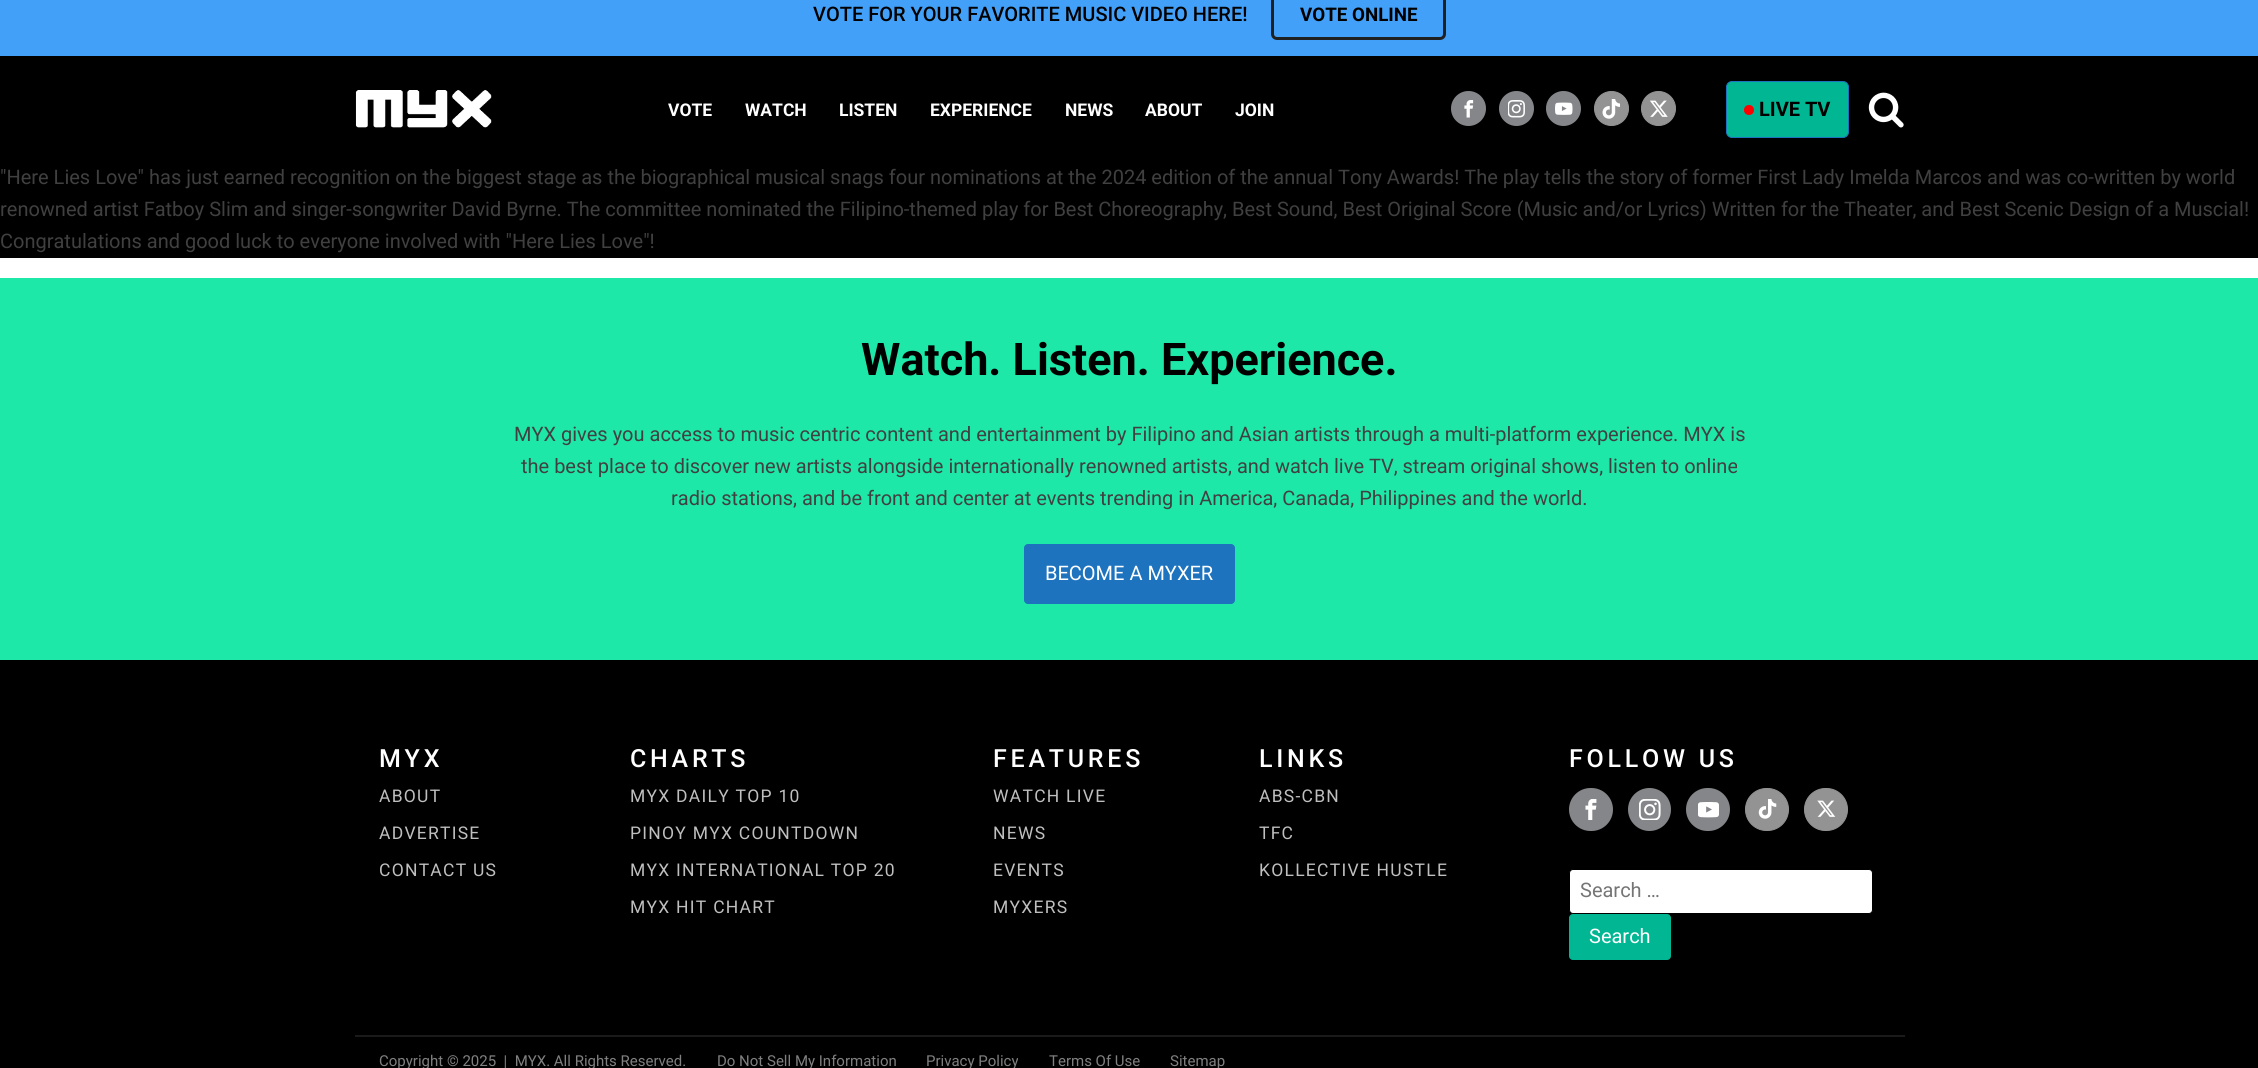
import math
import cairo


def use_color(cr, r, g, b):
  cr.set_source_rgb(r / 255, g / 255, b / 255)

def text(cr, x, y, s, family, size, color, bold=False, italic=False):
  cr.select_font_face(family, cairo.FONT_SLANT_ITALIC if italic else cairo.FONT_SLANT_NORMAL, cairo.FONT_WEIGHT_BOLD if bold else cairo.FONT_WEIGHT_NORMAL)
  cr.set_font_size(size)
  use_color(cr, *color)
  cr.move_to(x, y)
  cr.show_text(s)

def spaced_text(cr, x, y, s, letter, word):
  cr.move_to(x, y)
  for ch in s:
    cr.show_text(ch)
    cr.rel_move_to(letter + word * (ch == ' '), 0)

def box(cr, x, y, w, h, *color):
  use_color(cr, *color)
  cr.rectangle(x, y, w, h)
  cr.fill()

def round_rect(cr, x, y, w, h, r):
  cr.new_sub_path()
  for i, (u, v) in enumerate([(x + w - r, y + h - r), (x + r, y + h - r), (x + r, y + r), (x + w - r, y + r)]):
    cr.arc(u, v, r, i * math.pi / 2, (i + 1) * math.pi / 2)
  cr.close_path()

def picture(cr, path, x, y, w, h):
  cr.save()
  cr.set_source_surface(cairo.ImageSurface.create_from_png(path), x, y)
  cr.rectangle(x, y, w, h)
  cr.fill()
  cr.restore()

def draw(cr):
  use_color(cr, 255, 255, 255)
  cr.paint()
  box(cr, 0, 0, 2258, 56, 66, 160, 248)
  round_rect(cr, 1272.5, -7.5, 172, 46, 4.5)
  use_color(cr, 31, 32, 32)
  cr.set_line_width(3)
  cr.stroke()
  box(cr, 0, 56, 2258, 202, 0, 0, 0)
  picture(cr, "img_01.png", 355, 90, 137, 38)
  use_color(cr, 133, 134, 137)
  cr.arc(1468.5, 108.5, 17.5, 0, 2 * math.pi)
  cr.fill()
  picture(cr, "img_02.png", 1464, 100, 10, 18)
  cr.arc(1516.5, 108.5, 17.5, 0, 2 * math.pi)
  cr.fill()
  picture(cr, "img_03.png", 1508, 100, 17, 18)
  cr.arc(1563.5, 108.5, 17.5, 0, 2 * math.pi)
  cr.fill()
  picture(cr, "img_04.png", 1555, 102, 18, 13)
  use_color(cr, 147, 147, 147)
  cr.arc(1611.5, 108.5, 17, 0, 2 * math.pi)
  cr.fill_preserve()
  cr.set_line_width(1)
  cr.stroke()
  picture(cr, "img_05.png", 1602, 99, 18, 20)
  cr.arc(1658.5, 108.5, 17, 0, 2 * math.pi)
  cr.fill_preserve()
  cr.stroke()
  picture(cr, "img_06.png", 1650, 100, 18, 17)
  use_color(cr, 1, 182, 147)
  round_rect(cr, 1726.5, 81.5, 122, 56, 5.5)
  cr.fill_preserve()
  use_color(cr, 30, 115, 190)
  cr.stroke()
  use_color(cr, 255, 0, 0)
  cr.arc(1749, 110, 5, 0, 2 * math.pi)
  cr.fill()
  picture(cr, "img_07.png", 1868, 92, 36, 36)
  box(cr, 0, 278, 2258, 382, 29, 232, 168)
  use_color(cr, 30, 115, 190)
  round_rect(cr, 1024.5, 544.5, 210, 59, 3.5)
  cr.fill_preserve()
  cr.stroke()
  box(cr, 0, 660, 2258, 408, 0, 0, 0)
  box(cr, 355, 1035, 1550, 2, 26, 26, 26)
  use_color(cr, 133, 134, 137)
  round_rect(cr, 1569, 788, 44, 43, 21.5)
  cr.fill()
  picture(cr, "img_08.png", 1585, 799, 12, 21)
  cr.arc(1649.5, 809.5, 21.5, 0, 2 * math.pi)
  cr.fill()
  picture(cr, "img_09.png", 1639, 799, 22, 21)
  round_rect(cr, 1686, 788, 44, 43, 21.5)
  cr.fill()
  picture(cr, "img_10.png", 1698, 802, 21, 16)
  use_color(cr, 147, 147, 147)
  round_rect(cr, 1745.5, 788.5, 43, 42, 21)
  cr.fill_preserve()
  cr.stroke()
  picture(cr, "img_11.png", 1758, 799, 19, 20)
  round_rect(cr, 1804.5, 788.5, 43, 42, 21)
  cr.fill_preserve()
  cr.stroke()
  picture(cr, "img_12.png", 1817, 800, 19, 17)
  use_color(cr, 255, 255, 255)
  round_rect(cr, 1569.5, 869.5, 303, 44, 3.5)
  cr.fill_preserve()
  use_color(cr, 0, 0, 0)
  cr.stroke()
  use_color(cr, 1, 182, 147)
  round_rect(cr, 1569, 914, 102, 46, 4)
  cr.fill()
  text(cr, 813, 21, "VOTE FOR YOUR FAVORITE MUSIC VIDEO HERE!", "Roboto Medium", 20, (0, 0, 0))
  text(cr, 1300, 21, "VOTE ONLINE", "Roboto", 18.75, (0, 0, 0), bold=True)
  text(cr, 668, 116, "VOTE", "Roboto", 17.5, (255, 255, 255), bold=True)
  text(cr, 745, 116, "WATCH", "Roboto", 17.5, (255, 255, 255), bold=True)
  text(cr, 839, 116, "LISTEN", "Roboto", 17.5, (255, 255, 255), bold=True)
  text(cr, 930, 116, "EXPERIENCE", "Roboto", 17.5, (255, 255, 255), bold=True)
  text(cr, 1065, 116, "NEWS", "Roboto", 17.5, (255, 255, 255), bold=True)
  text(cr, 1145, 116, "ABOUT", "Roboto", 17.5, (255, 255, 255), bold=True)
  text(cr, 1235, 116, "JOIN", "Roboto", 17.5, (255, 255, 255), bold=True)
  text(cr, 1759, 116, "LIVE TV", "Roboto", 20, (0, 0, 0), bold=True)
  text(cr, 0, 184, "\"Here Lies Love\" has just earned recognition on the biggest stage as the biographical musical snags four nominations at the 2024 edition of the annual Tony Awards! The play tells the story of former First Lady Imelda Marcos and was co-written by world", "Roboto", 20, (64, 64, 64))
  text(cr, 0, 216, "renowned artist Fatboy Slim and singer-songwriter David Byrne. The committee nominated the Filipino-themed play for Best Choreography, Best Sound, Best Original Score (Music and/or Lyrics) Written for the Theater, and Best Scenic Design of a Muscial!", "Roboto", 20, (64, 64, 64))
  text(cr, 0, 248, "Congratulations and good luck to everyone involved with \"Here Lies Love\"!", "Roboto", 20, (64, 64, 64))
  text(cr, 861, 375, "Watch. Listen. Experience.", "Roboto", 45, (0, 0, 0), bold=True)
  text(cr, 514, 441, "MYX gives you access to music centric content and entertainment by Filipino and Asian artists through a multi-platform experience. MYX is", "Roboto", 20, (64, 64, 64))
  text(cr, 521, 473, "the best place to discover new artists alongside internationally renowned artists, and watch live TV, stream original shows, listen to online", "Roboto", 20, (64, 64, 64))
  text(cr, 671, 505, "radio stations, and be front and center at events trending in America, Canada, Philippines and the world.", "Roboto", 20, (64, 64, 64))
  text(cr, 1045, 580, "BECOME A MYXER", "Roboto", 20, (255, 255, 255))
  cr.select_font_face("Roboto Medium")
  cr.set_font_size(25)
  spaced_text(cr, 379, 767, "MYX", 3.75, 0)
  cr.select_font_face("Roboto")
  cr.set_font_size(17.5)
  use_color(cr, 191, 191, 191)
  spaced_text(cr, 379, 802, "ABOUT", 1.25, 0)
  spaced_text(cr, 379, 839, "ADVERTISE", 1.25, 0)
  spaced_text(cr, 379, 876, "CONTACT US", 1.25, 0)
  cr.select_font_face("Roboto Medium")
  cr.set_font_size(25)
  use_color(cr, 255, 255, 255)
  spaced_text(cr, 630, 767, "CHARTS", 3.75, 0)
  cr.select_font_face("Roboto")
  cr.set_font_size(17.5)
  use_color(cr, 191, 191, 191)
  spaced_text(cr, 630, 802, "MYX DAILY TOP 10", 1.25, 0)
  spaced_text(cr, 630, 839, "PINOY MYX COUNTDOWN", 1.25, 0)
  spaced_text(cr, 630, 876, "MYX INTERNATIONAL TOP 20", 1.25, 0)
  spaced_text(cr, 630, 913, "MYX HIT CHART", 1.25, 0)
  cr.select_font_face("Roboto Medium")
  cr.set_font_size(25)
  use_color(cr, 255, 255, 255)
  spaced_text(cr, 993, 767, "FEATURES", 3.75, 0)
  cr.select_font_face("Roboto")
  cr.set_font_size(17.5)
  use_color(cr, 191, 191, 191)
  spaced_text(cr, 993, 802, "WATCH LIVE", 1.25, 0)
  spaced_text(cr, 993, 839, "NEWS", 1.25, 0)
  spaced_text(cr, 993, 876, "EVENTS", 1.25, 0)
  spaced_text(cr, 993, 913, "MYXERS", 1.25, 0)
  cr.select_font_face("Roboto Medium")
  cr.set_font_size(25)
  use_color(cr, 255, 255, 255)
  spaced_text(cr, 1259, 767, "LINKS", 3.75, 0)
  cr.select_font_face("Roboto")
  cr.set_font_size(17.5)
  use_color(cr, 191, 191, 191)
  spaced_text(cr, 1259, 802, "ABS-CBN", 1.25, 0)
  spaced_text(cr, 1259, 839, "TFC", 1.25, 0)
  spaced_text(cr, 1259, 876, "KOLLECTIVE HUSTLE", 1.25, 0)
  cr.select_font_face("Roboto Medium")
  cr.set_font_size(25)
  use_color(cr, 255, 255, 255)
  spaced_text(cr, 1569, 767, "FOLLOW US", 3.75, 0)
  text(cr, 1580, 897, "Search …", "Roboto", 20, (117, 117, 117))
  text(cr, 1589, 943, "Search", "Roboto", 20, (255, 255, 255))
  text(cr, 379, 1066, "Copyright © 2025  |  MYX. All Rights Reserved.", "Roboto", 15, (128, 128, 128))
  text(cr, 717, 1066, "Do Not Sell My Information", "Roboto", 15, (128, 128, 128))
  text(cr, 926, 1066, "Privacy Policy", "Roboto", 15, (128, 128, 128))
  text(cr, 1049, 1066, "Terms Of Use", "Roboto", 15, (128, 128, 128))
  text(cr, 1170, 1066, "Sitemap", "Roboto", 15, (128, 128, 128))


surface = cairo.ImageSurface(cairo.FORMAT_RGB24, 2258, 1068)
cr = cairo.Context(surface)
options = cairo.FontOptions()
options.set_hint_metrics(cairo.HINT_METRICS_OFF)
options.set_hint_style(cairo.HINT_STYLE_NONE)
cr.set_font_options(options)
cr.set_miter_limit(4)
draw(cr)
surface.write_to_png("out.png")
